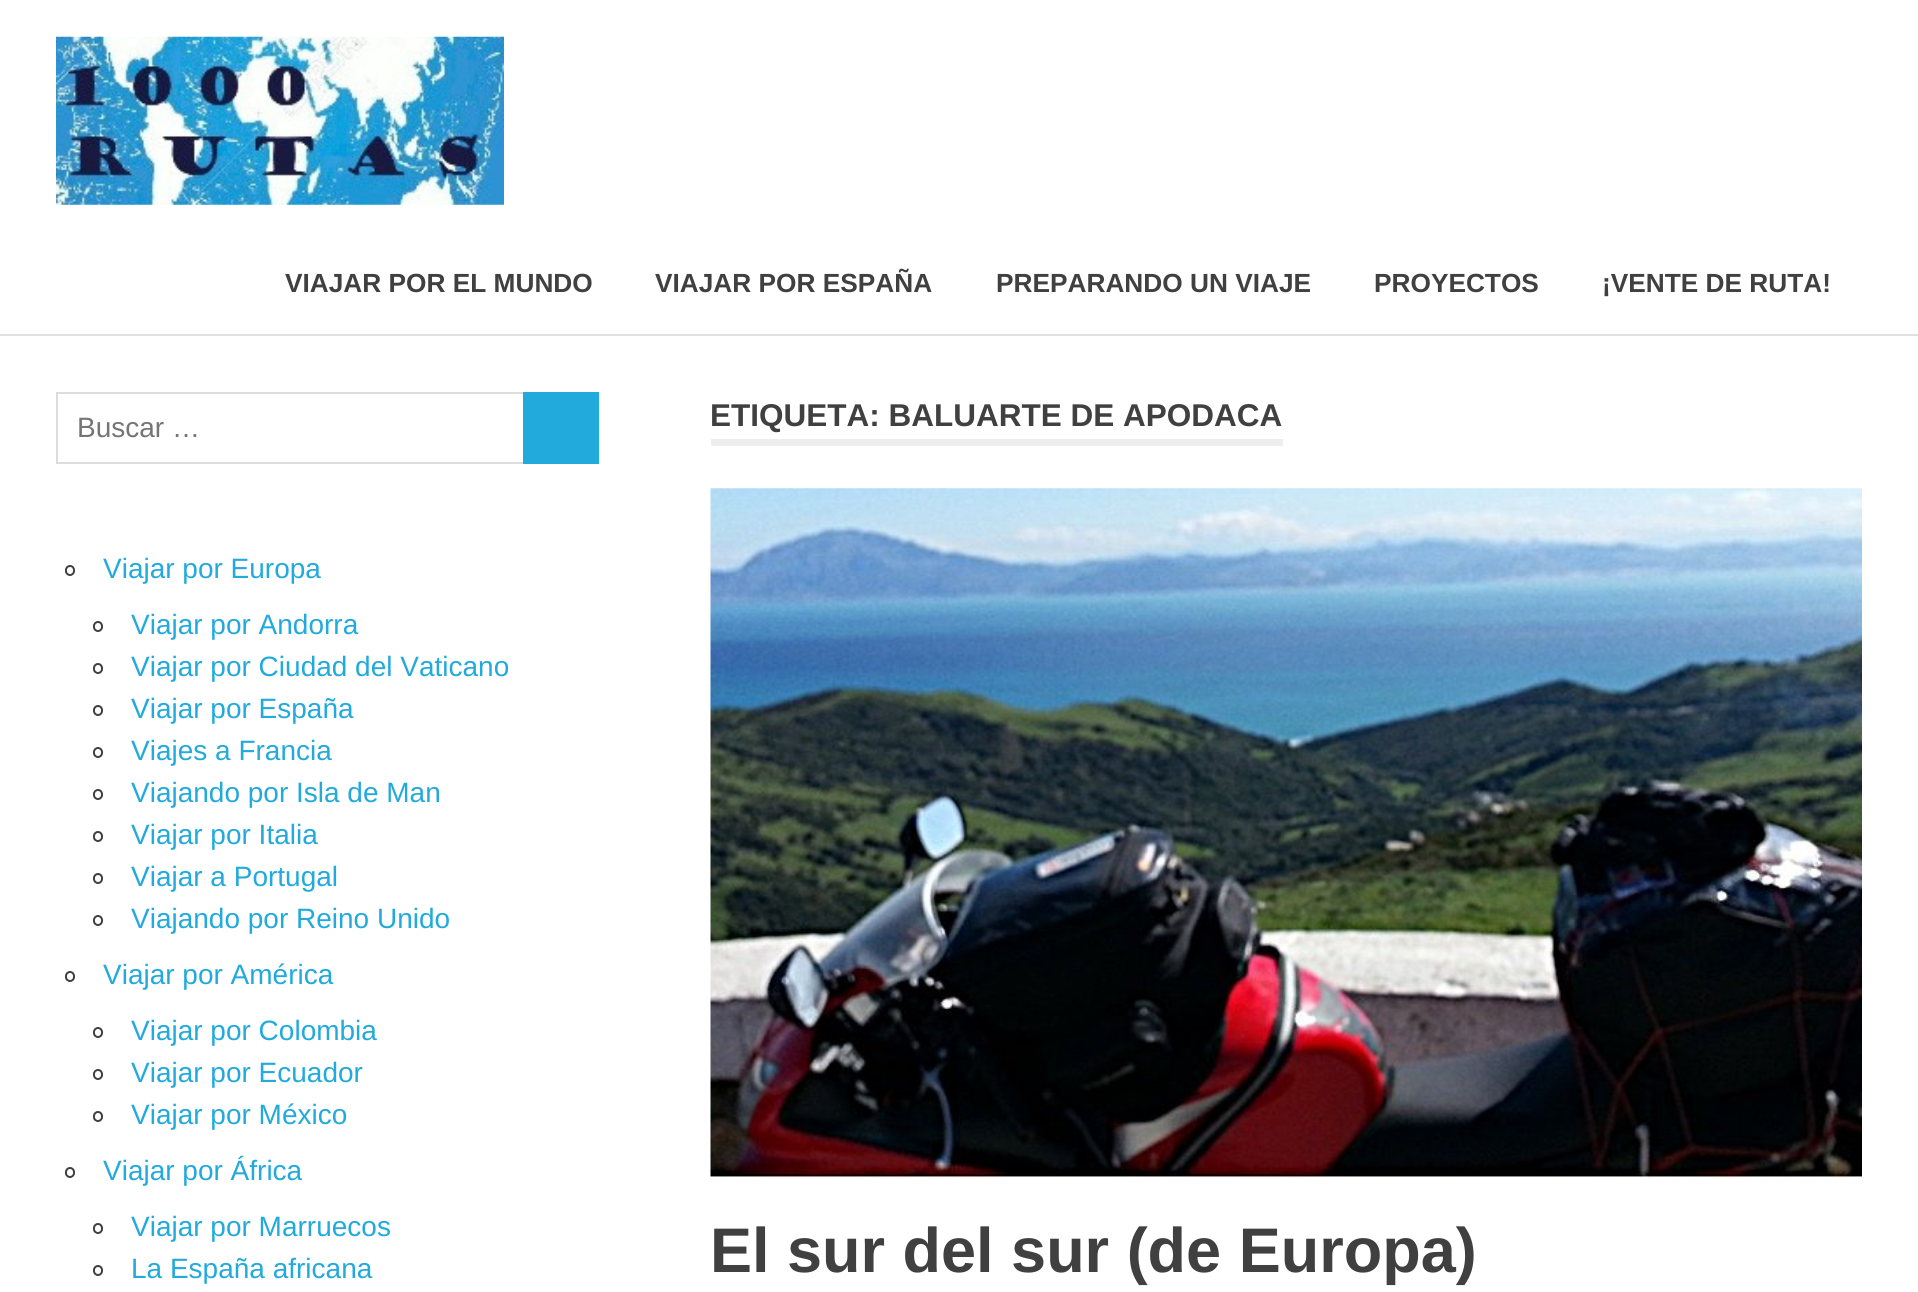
import math
import cairo


def use_color(cr, r, g, b):
  cr.set_source_rgb(r / 255, g / 255, b / 255)

def text(cr, x, y, s, family, size, color, bold=False, italic=False):
  cr.select_font_face(family, cairo.FONT_SLANT_ITALIC if italic else cairo.FONT_SLANT_NORMAL, cairo.FONT_WEIGHT_BOLD if bold else cairo.FONT_WEIGHT_NORMAL)
  cr.set_font_size(size)
  use_color(cr, *color)
  cr.move_to(x, y)
  cr.show_text(s)

def box(cr, x, y, w, h, *color):
  use_color(cr, *color)
  cr.rectangle(x, y, w, h)
  cr.fill()

def round_rect(cr, x, y, w, h, r):
  cr.new_sub_path()
  for i, (u, v) in enumerate([(x + w - r, y + h - r), (x + r, y + h - r), (x + r, y + r), (x + w - r, y + r)]):
    cr.arc(u, v, r, i * math.pi / 2, (i + 1) * math.pi / 2)
  cr.close_path()

def picture(cr, path, x, y, w, h):
  cr.save()
  cr.set_source_surface(cairo.ImageSurface.create_from_png(path), x, y)
  cr.rectangle(x, y, w, h)
  cr.fill()
  cr.restore()

def draw(cr):
  use_color(cr, 255, 255, 255)
  cr.paint()
  box(cr, 0, 334, 1918, 2, 224, 224, 224)
  picture(cr, "img_01.png", 56, 36, 448, 169)
  cr.rectangle(57, 393, 467, 70)
  use_color(cr, 221, 221, 221)
  cr.stroke()
  box(cr, 523, 392, 76, 72, 34, 170, 221)
  round_rect(cr, 66, 566, 8, 9, 4)
  use_color(cr, 64, 64, 64)
  cr.stroke()
  round_rect(cr, 94, 622, 8, 9, 4)
  cr.stroke()
  round_rect(cr, 94, 664, 8, 9, 4)
  cr.stroke()
  round_rect(cr, 94, 706, 8, 9, 4)
  cr.stroke()
  round_rect(cr, 94, 748, 8, 9, 4)
  cr.stroke()
  round_rect(cr, 94, 790, 8, 9, 4)
  cr.stroke()
  round_rect(cr, 94, 832, 8, 9, 4)
  cr.stroke()
  round_rect(cr, 94, 874, 8, 9, 4)
  cr.stroke()
  round_rect(cr, 94, 916, 8, 9, 4)
  cr.stroke()
  round_rect(cr, 66, 972, 8, 9, 4)
  cr.stroke()
  round_rect(cr, 94, 1028, 8, 9, 4)
  cr.stroke()
  round_rect(cr, 94, 1070, 8, 9, 4)
  cr.stroke()
  round_rect(cr, 94, 1112, 8, 9, 4)
  cr.stroke()
  round_rect(cr, 66, 1168, 8, 9, 4)
  cr.stroke()
  round_rect(cr, 94, 1224, 8, 9, 4)
  cr.stroke()
  round_rect(cr, 94, 1266, 8, 9, 4)
  cr.stroke()
  box(cr, 711, 439, 572, 7, 238, 238, 238)
  picture(cr, "img_02.png", 710, 488, 1152, 690)
  text(cr, 285, 292, "VIAJAR POR EL MUNDO", "Liberation Sans", 26.25, (64, 64, 64), bold=True)
  text(cr, 655, 292, "VIAJAR POR ESPAÑA", "Liberation Sans", 26.25, (64, 64, 64), bold=True)
  text(cr, 996, 292, "PREPARANDO UN VIAJE", "Liberation Sans", 26.25, (64, 64, 64), bold=True)
  text(cr, 1374, 292, "PROYECTOS", "Liberation Sans", 26.25, (64, 64, 64), bold=True)
  text(cr, 1602, 292, "¡VENTE DE RUTA!", "Liberation Sans", 26.25, (64, 64, 64), bold=True)
  text(cr, 77, 437, "Buscar …", "Liberation Sans", 28, (117, 117, 117))
  text(cr, 103, 578, "Viajar por Europa", "Liberation Sans", 28, (34, 170, 221))
  text(cr, 131, 634, "Viajar por Andorra", "Liberation Sans", 28, (34, 170, 221))
  text(cr, 131, 676, "Viajar por Ciudad del Vaticano", "Liberation Sans", 28, (34, 170, 221))
  text(cr, 131, 718, "Viajar por España", "Liberation Sans", 28, (34, 170, 221))
  text(cr, 131, 760, "Viajes a Francia", "Liberation Sans", 28, (34, 170, 221))
  text(cr, 131, 802, "Viajando por Isla de Man", "Liberation Sans", 28, (34, 170, 221))
  text(cr, 131, 844, "Viajar por Italia", "Liberation Sans", 28, (34, 170, 221))
  text(cr, 131, 886, "Viajar a Portugal", "Liberation Sans", 28, (34, 170, 221))
  text(cr, 131, 928, "Viajando por Reino Unido", "Liberation Sans", 28, (34, 170, 221))
  text(cr, 103, 984, "Viajar por América", "Liberation Sans", 28, (34, 170, 221))
  text(cr, 131, 1040, "Viajar por Colombia", "Liberation Sans", 28, (34, 170, 221))
  text(cr, 131, 1082, "Viajar por Ecuador", "Liberation Sans", 28, (34, 170, 221))
  text(cr, 131, 1124, "Viajar por México", "Liberation Sans", 28, (34, 170, 221))
  text(cr, 103, 1180, "Viajar por África", "Liberation Sans", 28, (34, 170, 221))
  text(cr, 131, 1236, "Viajar por Marruecos", "Liberation Sans", 28, (34, 170, 221))
  text(cr, 131, 1278, "La España africana", "Liberation Sans", 28, (34, 170, 221))
  text(cr, 710, 426, "ETIQUETA: BALUARTE DE APODACA", "Liberation Sans", 31.5, (64, 64, 64), bold=True)
  text(cr, 710, 1272, "El sur del sur (de Europa)", "Liberation Sans", 63, (64, 64, 64), bold=True)


surface = cairo.ImageSurface(cairo.FORMAT_RGB24, 1918, 1292)
cr = cairo.Context(surface)
options = cairo.FontOptions()
options.set_hint_metrics(cairo.HINT_METRICS_OFF)
options.set_hint_style(cairo.HINT_STYLE_NONE)
cr.set_font_options(options)
cr.set_miter_limit(4)
draw(cr)
surface.write_to_png("out.png")
